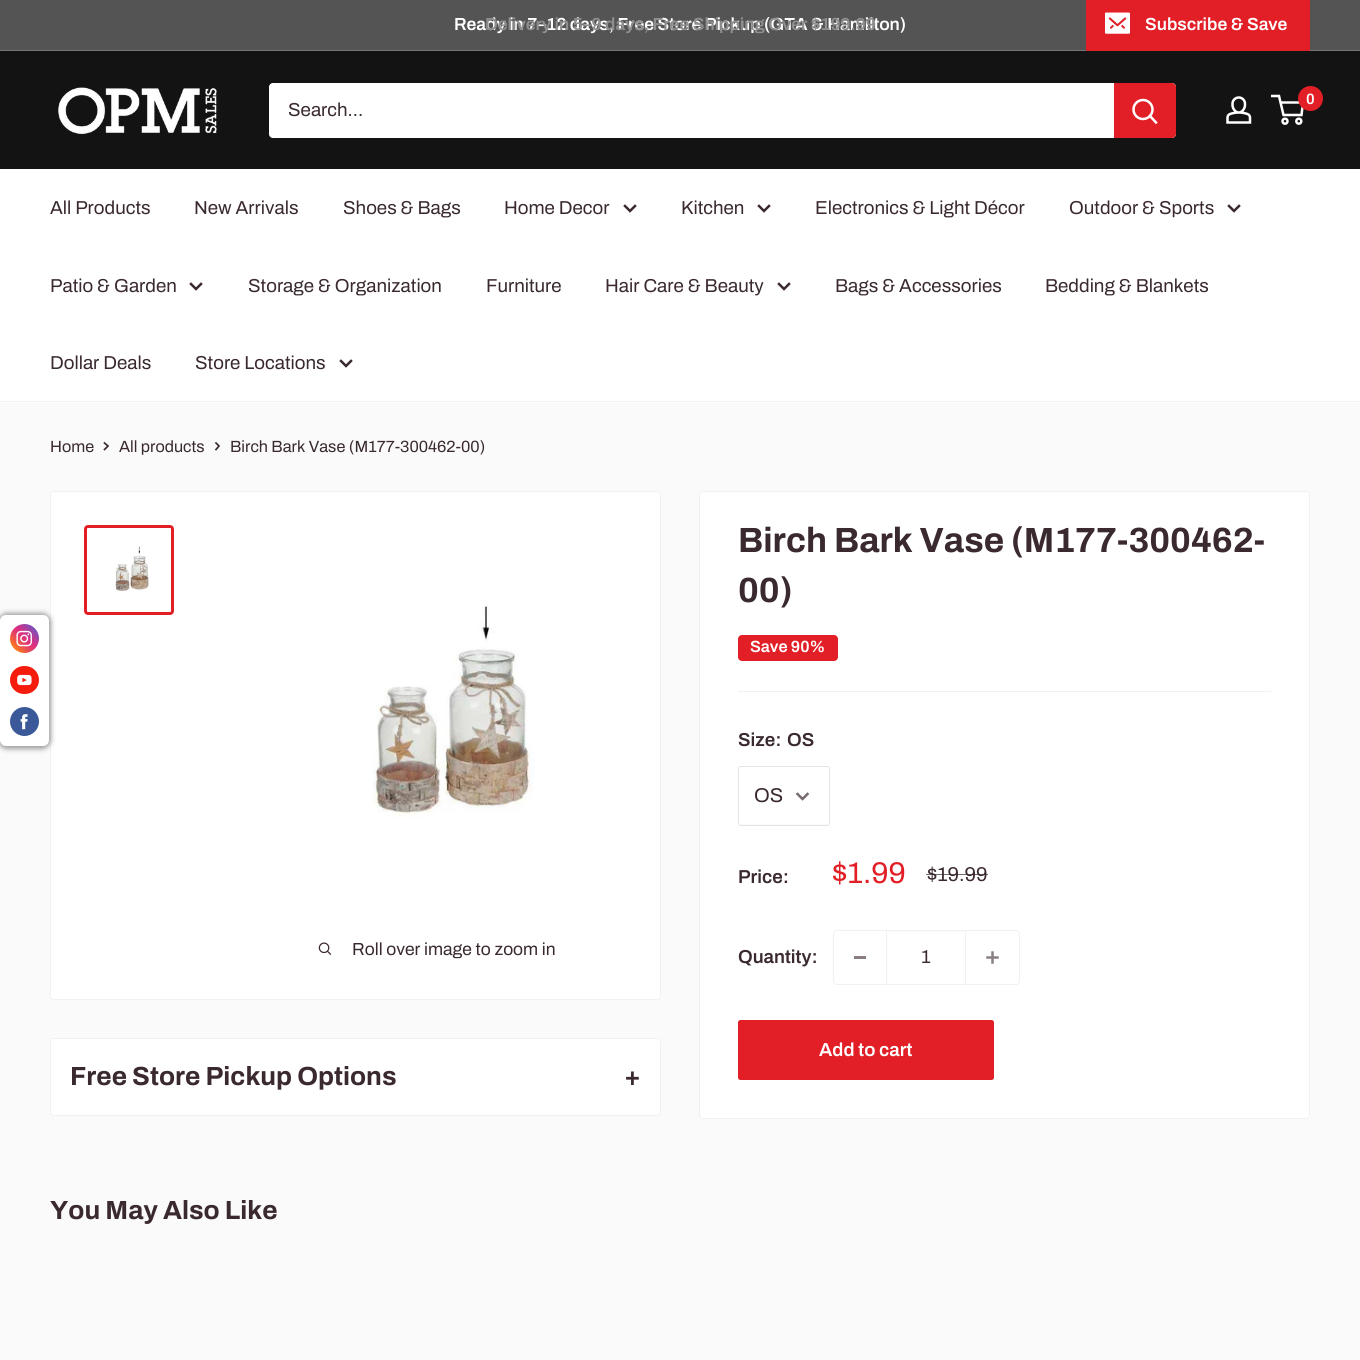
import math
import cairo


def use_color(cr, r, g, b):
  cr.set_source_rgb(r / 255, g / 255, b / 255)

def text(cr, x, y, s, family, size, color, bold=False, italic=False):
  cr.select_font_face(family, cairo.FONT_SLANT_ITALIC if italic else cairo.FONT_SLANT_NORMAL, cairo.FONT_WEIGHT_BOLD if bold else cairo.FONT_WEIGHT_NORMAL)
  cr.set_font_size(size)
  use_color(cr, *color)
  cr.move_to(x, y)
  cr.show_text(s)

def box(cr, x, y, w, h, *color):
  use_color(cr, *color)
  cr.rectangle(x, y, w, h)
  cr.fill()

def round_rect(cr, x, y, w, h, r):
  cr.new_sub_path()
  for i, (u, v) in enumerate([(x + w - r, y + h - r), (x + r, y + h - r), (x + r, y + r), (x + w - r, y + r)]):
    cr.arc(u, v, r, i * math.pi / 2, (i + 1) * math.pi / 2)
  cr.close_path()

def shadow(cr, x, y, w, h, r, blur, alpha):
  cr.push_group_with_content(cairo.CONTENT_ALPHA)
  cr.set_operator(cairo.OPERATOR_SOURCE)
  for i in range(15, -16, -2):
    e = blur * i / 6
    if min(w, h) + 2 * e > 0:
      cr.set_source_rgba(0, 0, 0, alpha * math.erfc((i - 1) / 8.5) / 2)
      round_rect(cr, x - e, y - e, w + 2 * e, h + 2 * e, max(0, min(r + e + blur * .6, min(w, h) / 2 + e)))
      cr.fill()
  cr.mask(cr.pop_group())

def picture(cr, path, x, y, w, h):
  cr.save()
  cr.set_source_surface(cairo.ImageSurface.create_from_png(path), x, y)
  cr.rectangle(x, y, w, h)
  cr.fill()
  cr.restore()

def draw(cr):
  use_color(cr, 250, 250, 250)
  cr.paint()
  box(cr, 0, 0, 1360, 50, 84, 84, 84)
  box(cr, 0, 50, 1360, 1, 117, 117, 117)
  use_color(cr, 226, 30, 38)
  cr.new_path()
  cr.move_to(1086, 1)
  cr.line_to(1086, 51)
  cr.line_to(1310, 51)
  cr.line_to(1310, 50)
  cr.line_to(1086, 50)
  cr.close_path()
  cr.fill()
  box(cr, 1086, 0, 224, 50, 226, 30, 38)
  picture(cr, "img_01.png", 1105, 12, 25, 22)
  box(cr, 0, 51, 1360, 118, 20, 19, 19)
  picture(cr, "img_02.png", 58, 87, 159, 48)
  picture(cr, "img_03.png", 1226, 96, 26, 28)
  cr.arc(1285, 121.2, 2.5, 0, 2 * math.pi)
  use_color(cr, 255, 255, 255)
  cr.set_line_width(2.5)
  cr.stroke()
  cr.arc(1298.8, 121.2, 2.5, 0, 2 * math.pi)
  cr.stroke()
  cr.new_path()
  cr.move_to(1280.5, 102.5)
  cr.line_to(1303, 102.5)
  cr.line_to(1301.5, 115)
  cr.line_to(1283.5, 115)
  cr.line_to(1279, 96)
  cr.line_to(1271, 96)
  cr.stroke()
  use_color(cr, 226, 30, 38)
  cr.arc(1310.5, 98.5, 12.5, 0, 2 * math.pi)
  cr.fill()
  use_color(cr, 255, 255, 255)
  round_rect(cr, 269, 83, 907, 55, 4)
  cr.fill()
  use_color(cr, 226, 30, 38)
  cr.new_path()
  cr.move_to(1114, 83)
  cr.line_to(1172, 83)
  cr.curve_to(1174, 83, 1176, 85, 1176, 87)
  cr.line_to(1176, 134)
  cr.curve_to(1176, 136, 1174, 138, 1172, 138)
  cr.line_to(1114, 138)
  cr.close_path()
  cr.fill()
  cr.new_path()
  cr.move_to(1156, 122.5)
  cr.line_to(1150, 116)
  use_color(cr, 255, 255, 255)
  cr.set_line_cap(cairo.LINE_CAP_SQUARE)
  cr.stroke()
  cr.arc(1143, 109.5, 9.5, 0, 2 * math.pi)
  cr.set_line_cap(cairo.LINE_CAP_BUTT)
  cr.stroke()
  box(cr, 0, 169, 1360, 234, 255, 255, 255)
  box(cr, 0, 401, 1360, 1, 241, 241, 241)
  cr.new_path()
  cr.move_to(635, 206)
  cr.line_to(630, 211)
  cr.line_to(625, 206)
  use_color(cr, 58, 42, 47)
  cr.set_line_cap(cairo.LINE_CAP_SQUARE)
  cr.stroke()
  cr.new_path()
  cr.move_to(769, 206)
  cr.line_to(764, 211)
  cr.line_to(759, 206)
  cr.stroke()
  cr.new_path()
  cr.move_to(1239, 206)
  cr.line_to(1234, 211)
  cr.line_to(1229, 206)
  cr.stroke()
  cr.new_path()
  cr.move_to(201, 284)
  cr.line_to(196, 289)
  cr.line_to(191, 284)
  cr.stroke()
  cr.new_path()
  cr.move_to(789, 284)
  cr.line_to(784, 289)
  cr.line_to(779, 284)
  cr.stroke()
  cr.new_path()
  cr.move_to(351, 361)
  cr.line_to(346, 366)
  cr.line_to(341, 361)
  cr.stroke()
  use_color(cr, 255, 255, 255)
  round_rect(cr, 50.5, 491.5, 610, 508, 3.5)
  cr.fill_preserve()
  use_color(cr, 241, 241, 241)
  cr.set_line_width(1)
  cr.set_line_cap(cairo.LINE_CAP_BUTT)
  cr.stroke()
  use_color(cr, 158, 158, 158)
  shadow(cr, -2, 613, 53, 136, 9, 2.5, 1)
  use_color(cr, 255, 255, 255)
  round_rect(cr, 0, 615, 49, 131, 6)
  cr.fill()
  picture(cr, "img_04.png", 10, 624, 29, 29)
  picture(cr, "img_05.png", 10, 666, 29, 28)
  picture(cr, "img_06.png", 10, 707, 29, 29)
  cr.new_path()
  cr.move_to(104.5, 443)
  cr.line_to(108, 446)
  cr.line_to(104.5, 449.5)
  use_color(cr, 58, 42, 47)
  cr.set_line_width(1.7)
  cr.set_line_cap(cairo.LINE_CAP_SQUARE)
  cr.stroke()
  cr.new_path()
  cr.move_to(216, 443)
  cr.line_to(219, 446)
  cr.line_to(216, 449.5)
  cr.stroke()
  round_rect(cr, 85.5, 526.5, 87, 87, 2.5)
  use_color(cr, 226, 30, 38)
  cr.set_line_width(3)
  cr.set_line_cap(cairo.LINE_CAP_BUTT)
  cr.stroke()
  picture(cr, "img_07.png", 115, 546, 35, 47)
  picture(cr, "img_08.png", 372, 605, 162, 213)
  picture(cr, "img_09.png", 318, 942, 14, 13)
  use_color(cr, 255, 255, 255)
  round_rect(cr, 699.5, 491.5, 610, 627, 3.5)
  cr.fill_preserve()
  use_color(cr, 241, 241, 241)
  cr.set_line_width(1)
  cr.stroke()
  use_color(cr, 226, 31, 38)
  round_rect(cr, 738, 635, 100, 26, 4)
  cr.fill()
  box(cr, 738, 691, 533, 1, 241, 241, 241)
  use_color(cr, 251, 251, 251)
  cr.new_path()
  cr.move_to(739, 822)
  cr.curve_to(739, 829, 745, 825, 755, 825)
  cr.line_to(813, 825)
  cr.curve_to(823, 825, 829, 829, 829, 822)
  cr.line_to(828, 824)
  cr.line_to(740, 824)
  cr.curve_to(739, 824, 739, 823, 739, 822)
  cr.close_path()
  cr.fill()
  round_rect(cr, 738.5, 766.5, 91, 59, 2)
  use_color(cr, 228, 228, 228)
  cr.stroke()
  cr.new_path()
  cr.move_to(807.5, 794)
  cr.line_to(802.5, 799)
  cr.line_to(797.5, 794)
  use_color(cr, 117, 106, 109)
  cr.set_line_width(2.5)
  cr.set_line_cap(cairo.LINE_CAP_SQUARE)
  cr.stroke()
  round_rect(cr, 833.5, 930.5, 186, 54, 3.5)
  use_color(cr, 241, 241, 241)
  cr.set_line_width(1)
  cr.set_line_cap(cairo.LINE_CAP_BUTT)
  cr.stroke()
  box(cr, 854, 956, 12, 3, 137, 127, 130)
  box(cr, 888, 931, 77, 1, 249, 249, 249)
  box(cr, 965, 931, 1, 53, 241, 241, 241)
  box(cr, 886, 931, 1, 53, 241, 241, 241)
  picture(cr, "img_10.png", 986, 951, 13, 13)
  use_color(cr, 226, 30, 38)
  round_rect(cr, 738, 1020, 256, 60, 2.5)
  cr.fill()
  use_color(cr, 255, 255, 255)
  round_rect(cr, 50.5, 1038.5, 610, 77, 3.5)
  cr.fill_preserve()
  use_color(cr, 241, 241, 241)
  cr.stroke()
  text(cr, 454, 30, "Ready in 7–12 days, Free Store Pickup (GTA & Hamilton)", "Archivo SemiBold", 17.5, (255, 255, 255))
  text(cr, 485, 30, "Delivery in 5–9 days, Free Shipping Over $199.99", "Archivo SemiBold", 17.5, (142, 142, 142))
  text(cr, 1145, 30, "Subscribe & Save", "Archivo SemiBold", 17.5, (255, 255, 255))
  text(cr, 1306, 104, "0", "Archivo SemiBold", 15, (255, 255, 255))
  text(cr, 288, 116, "Search...", "Archivo", 18.75, (58, 42, 47))
  text(cr, 50, 214, "All Products", "Archivo", 18.75, (58, 42, 47))
  text(cr, 194, 214, "New Arrivals", "Archivo", 18.75, (58, 42, 47))
  text(cr, 343, 214, "Shoes & Bags", "Archivo", 18.75, (58, 42, 47))
  text(cr, 504, 214, "Home Decor", "Archivo", 18.75, (58, 42, 47))
  text(cr, 681, 214, "Kitchen", "Archivo", 18.75, (58, 42, 47))
  text(cr, 815, 214, "Electronics & Light Décor", "Archivo", 18.75, (58, 42, 47))
  text(cr, 1069, 214, "Outdoor & Sports", "Archivo", 18.75, (58, 42, 47))
  text(cr, 50, 292, "Patio & Garden", "Archivo", 18.75, (58, 42, 47))
  text(cr, 248, 292, "Storage & Organization", "Archivo", 18.75, (58, 42, 47))
  text(cr, 486, 292, "Furniture", "Archivo", 18.75, (58, 42, 47))
  text(cr, 605, 292, "Hair Care & Beauty", "Archivo", 18.75, (58, 42, 47))
  text(cr, 835, 292, "Bags & Accessories", "Archivo", 18.75, (58, 42, 47))
  text(cr, 1045, 292, "Bedding & Blankets", "Archivo", 18.75, (58, 42, 47))
  text(cr, 50, 369, "Dollar Deals", "Archivo", 18.75, (58, 42, 47))
  text(cr, 195, 369, "Store Locations", "Archivo", 18.75, (58, 42, 47))
  text(cr, 50, 452, "Home", "Archivo", 16.25, (58, 42, 47))
  text(cr, 119, 452, "All products", "Archivo", 16.25, (58, 42, 47))
  text(cr, 230, 452, "Birch Bark Vase (M177-300462-00)", "Archivo", 16.25, (58, 42, 47))
  text(cr, 352, 955, "Roll over image to zoom in", "Archivo", 17.5, (58, 42, 47))
  text(cr, 738, 552, "Birch Bark Vase (M177-300462-", "Archivo", 35, (58, 42, 47), bold=True)
  text(cr, 738, 602, "00)", "Archivo", 35, (58, 42, 47), bold=True)
  text(cr, 750, 652, "Save 90%", "Archivo SemiBold", 16.25, (255, 255, 255))
  text(cr, 738, 746, "Size:", "Archivo SemiBold", 18.75, (58, 42, 47))
  text(cr, 787, 746, "OS", "Archivo SemiBold", 18.75, (58, 42, 47))
  text(cr, 754, 802, "OS", "Archivo", 20, (58, 42, 47))
  text(cr, 738, 883, "Price:", "Archivo SemiBold", 18.75, (58, 42, 47))
  text(cr, 832, 883, "$1.99", "Archivo", 30, (226, 31, 38))
  text(cr, 927, 881, "$19.99", "Archivo", 20, (58, 42, 47))
  cr.set_source_rgba(0.227, 0.165, 0.184, 0.7)
  cr.rectangle(926, 874, 62, 1)
  cr.fill()
  text(cr, 738, 963, "Quantity:", "Archivo SemiBold", 18.75, (58, 42, 47))
  text(cr, 921, 963, "1", "Archivo", 18.75, (58, 42, 47))
  text(cr, 819, 1056, "Add to cart", "Archivo SemiBold", 18.75, (255, 255, 255))
  text(cr, 70, 1085, "Free Store Pickup Options", "Archivo", 26.25, (58, 42, 47), bold=True)
  text(cr, 624, 1085, "+", "Archivo", 26.25, (58, 42, 47), bold=True)
  text(cr, 50, 1219, "You May Also Like", "Archivo", 26.25, (58, 42, 47), bold=True)


surface = cairo.ImageSurface(cairo.FORMAT_RGB24, 1360, 1360)
cr = cairo.Context(surface)
options = cairo.FontOptions()
options.set_hint_metrics(cairo.HINT_METRICS_OFF)
options.set_hint_style(cairo.HINT_STYLE_NONE)
cr.set_font_options(options)
cr.set_miter_limit(4)
draw(cr)
surface.write_to_png("out.png")
